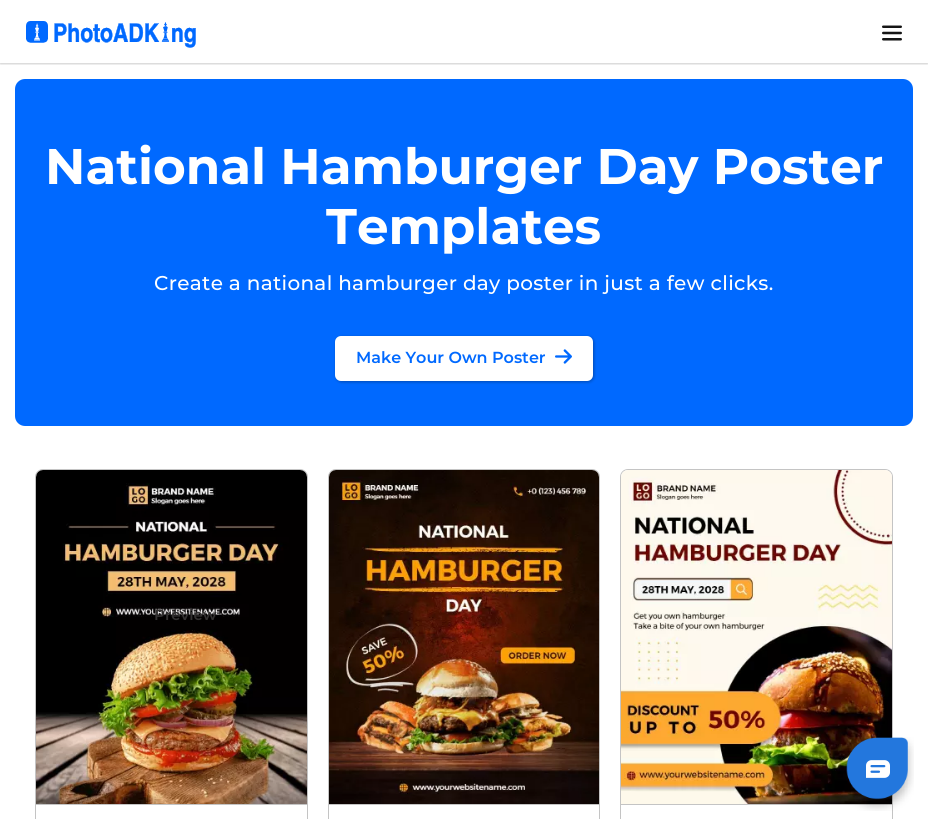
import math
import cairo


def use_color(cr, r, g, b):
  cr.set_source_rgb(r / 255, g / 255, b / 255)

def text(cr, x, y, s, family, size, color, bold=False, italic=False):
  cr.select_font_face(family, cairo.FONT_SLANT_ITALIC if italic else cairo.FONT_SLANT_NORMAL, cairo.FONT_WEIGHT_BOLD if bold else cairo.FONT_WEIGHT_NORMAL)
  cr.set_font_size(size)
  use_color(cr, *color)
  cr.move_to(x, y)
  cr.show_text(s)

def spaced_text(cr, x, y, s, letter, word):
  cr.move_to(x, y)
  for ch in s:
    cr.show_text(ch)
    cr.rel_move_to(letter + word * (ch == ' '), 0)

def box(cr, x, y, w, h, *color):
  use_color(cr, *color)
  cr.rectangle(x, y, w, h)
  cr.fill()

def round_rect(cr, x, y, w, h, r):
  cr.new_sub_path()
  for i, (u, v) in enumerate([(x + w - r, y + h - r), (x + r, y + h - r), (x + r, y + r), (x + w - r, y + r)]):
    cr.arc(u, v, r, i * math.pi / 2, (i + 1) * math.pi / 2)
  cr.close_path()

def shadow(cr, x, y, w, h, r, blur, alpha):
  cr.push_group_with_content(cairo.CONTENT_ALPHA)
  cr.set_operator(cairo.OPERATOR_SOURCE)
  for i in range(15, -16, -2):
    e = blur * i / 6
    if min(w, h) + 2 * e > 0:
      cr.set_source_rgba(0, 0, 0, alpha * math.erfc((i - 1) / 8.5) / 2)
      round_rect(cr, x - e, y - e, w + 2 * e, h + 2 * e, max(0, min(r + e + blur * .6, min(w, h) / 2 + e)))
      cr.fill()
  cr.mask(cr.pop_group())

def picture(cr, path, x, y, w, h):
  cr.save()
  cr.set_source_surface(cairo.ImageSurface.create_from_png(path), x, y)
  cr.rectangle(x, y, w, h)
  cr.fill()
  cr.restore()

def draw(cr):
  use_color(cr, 255, 255, 255)
  cr.paint()
  use_color(cr, 0, 105, 255)
  round_rect(cr, 15, 79, 898, 347, 10)
  cr.fill()
  cr.save()
  cr.rectangle(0, 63, 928, 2)
  cr.clip()
  use_color(cr, 0, 0, 0)
  shadow(cr, 0, 1, 928, 63, 0, 1, 0.2)
  cr.restore()
  picture(cr, "img_01.png", 26, 21, 170, 27)
  picture(cr, "img_02.png", 882, 25, 20, 16)
  use_color(cr, 0, 0, 0)
  shadow(cr, 336, 337, 258, 45, 6, 1.5, 0.3)
  use_color(cr, 255, 255, 255)
  round_rect(cr, 335, 336, 258, 45, 6)
  cr.fill()
  picture(cr, "img_03.png", 555, 349, 17, 15)
  round_rect(cr, 35.5, 469.5, 272, 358, 7.5)
  use_color(cr, 196, 196, 196)
  cr.set_line_width(1)
  cr.stroke()
  picture(cr, "img_04.png", 36, 470, 271, 334)
  box(cr, 36, 804, 271, 1, 196, 196, 196)
  round_rect(cr, 328.5, 469.5, 271, 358, 7.5)
  cr.stroke()
  picture(cr, "img_05.png", 329, 470, 270, 334)
  box(cr, 329, 804, 270, 1, 196, 196, 196)
  round_rect(cr, 620.5, 469.5, 272, 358, 7.5)
  cr.stroke()
  picture(cr, "img_06.png", 621, 470, 271, 334)
  box(cr, 621, 804, 271, 1, 196, 196, 196)
  picture(cr, "img_07.png", 842, 737, 72, 74)
  picture(cr, "img_08.png", 866, 760, 24, 18)
  text(cr, 45, 184, "National Hamburger Day Poster", "Montserrat", 50, (255, 255, 255), bold=True)
  text(cr, 326, 244, "Templates", "Montserrat", 50, (255, 255, 255), bold=True)
  cr.select_font_face("Montserrat Medium")
  cr.set_font_size(20)
  spaced_text(cr, 154, 290, "Create a national hamburger day poster in just a few clicks.", 0.3, 0)
  text(cr, 356, 363, "Make Your Own Poster", "Montserrat SemiBold", 16, (0, 105, 255))
  text(cr, 154, 620, "Preview", "Montserrat SemiBold", 15, (51, 49, 49))


surface = cairo.ImageSurface(cairo.FORMAT_RGB24, 928, 819)
cr = cairo.Context(surface)
options = cairo.FontOptions()
options.set_hint_metrics(cairo.HINT_METRICS_OFF)
options.set_hint_style(cairo.HINT_STYLE_NONE)
cr.set_font_options(options)
cr.set_miter_limit(4)
draw(cr)
surface.write_to_png("out.png")
